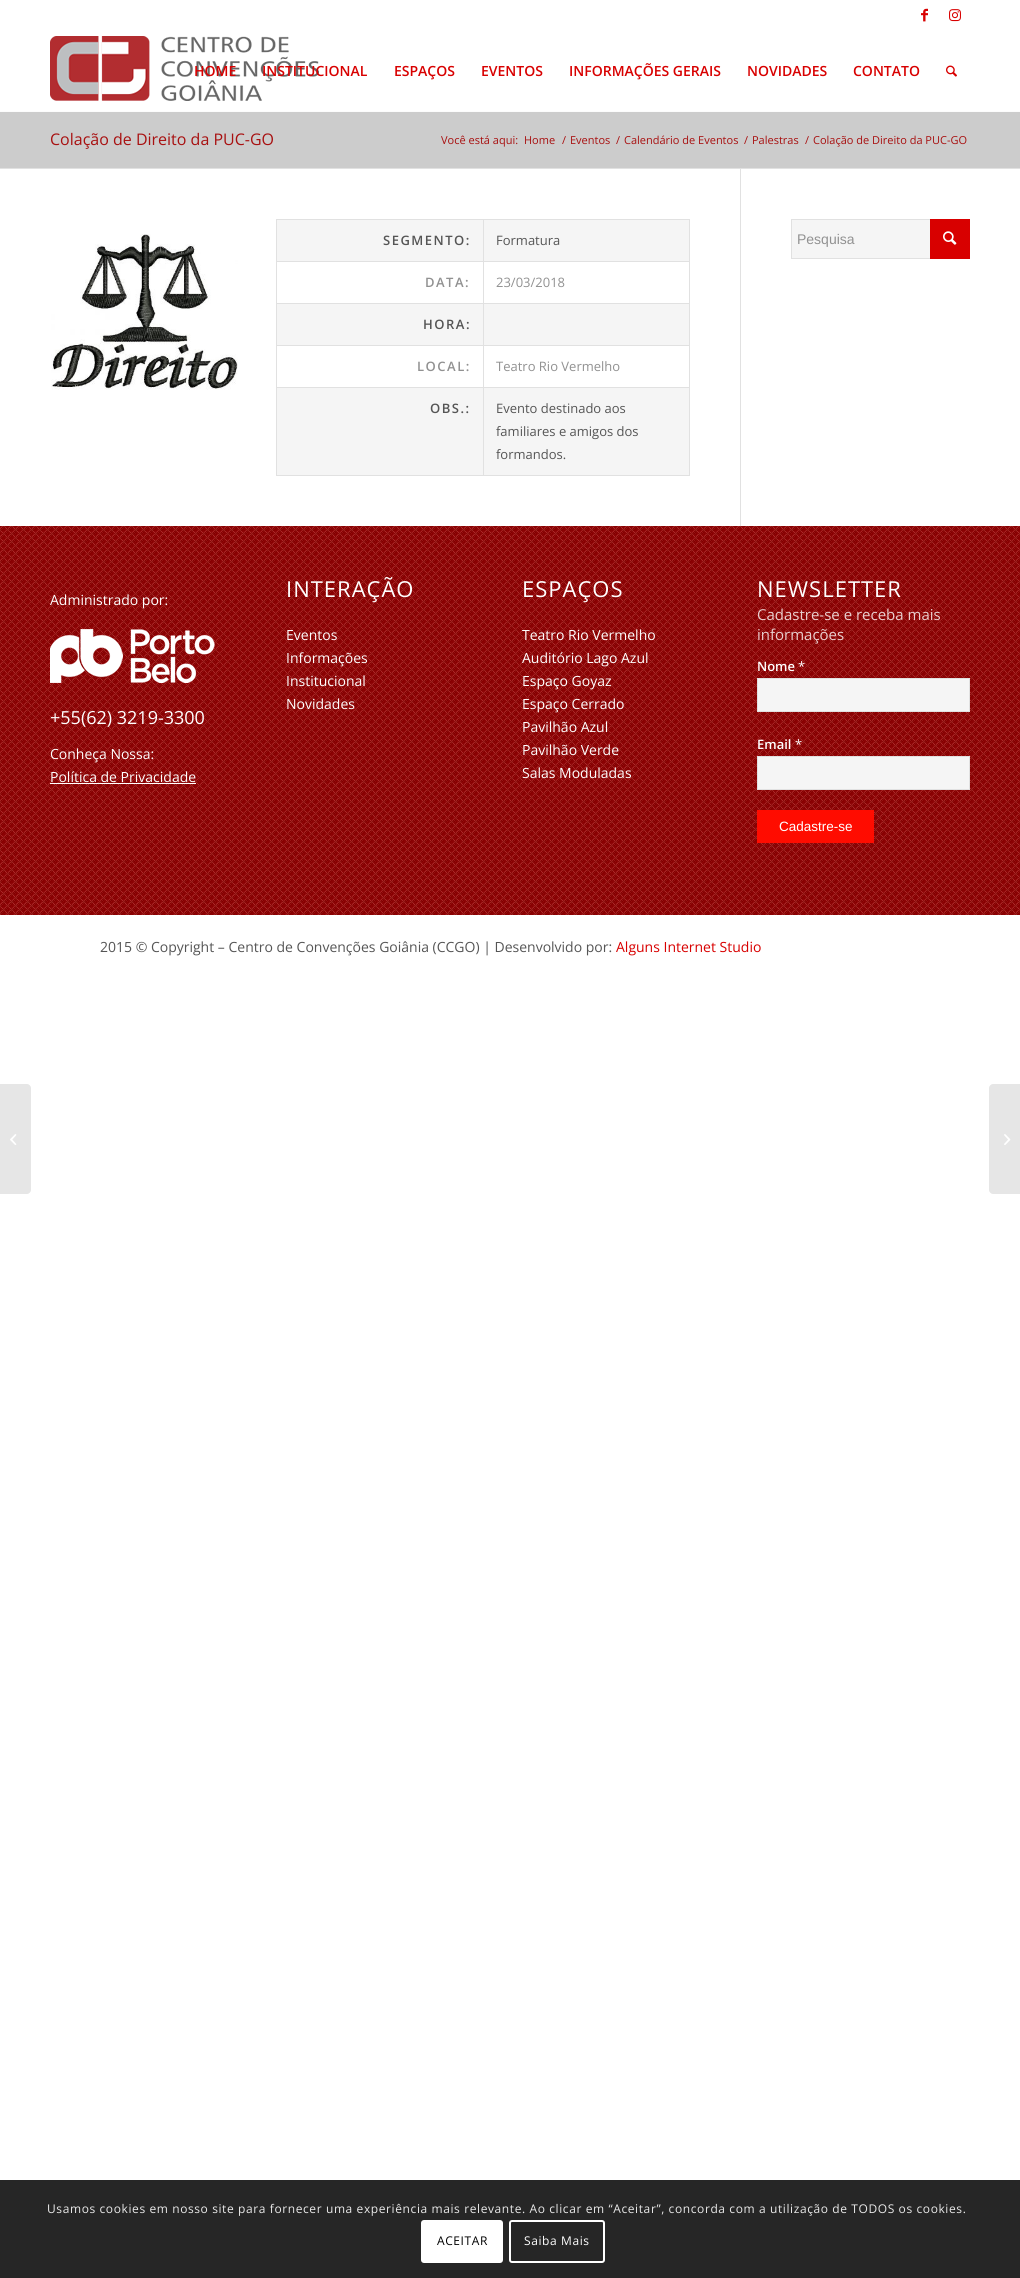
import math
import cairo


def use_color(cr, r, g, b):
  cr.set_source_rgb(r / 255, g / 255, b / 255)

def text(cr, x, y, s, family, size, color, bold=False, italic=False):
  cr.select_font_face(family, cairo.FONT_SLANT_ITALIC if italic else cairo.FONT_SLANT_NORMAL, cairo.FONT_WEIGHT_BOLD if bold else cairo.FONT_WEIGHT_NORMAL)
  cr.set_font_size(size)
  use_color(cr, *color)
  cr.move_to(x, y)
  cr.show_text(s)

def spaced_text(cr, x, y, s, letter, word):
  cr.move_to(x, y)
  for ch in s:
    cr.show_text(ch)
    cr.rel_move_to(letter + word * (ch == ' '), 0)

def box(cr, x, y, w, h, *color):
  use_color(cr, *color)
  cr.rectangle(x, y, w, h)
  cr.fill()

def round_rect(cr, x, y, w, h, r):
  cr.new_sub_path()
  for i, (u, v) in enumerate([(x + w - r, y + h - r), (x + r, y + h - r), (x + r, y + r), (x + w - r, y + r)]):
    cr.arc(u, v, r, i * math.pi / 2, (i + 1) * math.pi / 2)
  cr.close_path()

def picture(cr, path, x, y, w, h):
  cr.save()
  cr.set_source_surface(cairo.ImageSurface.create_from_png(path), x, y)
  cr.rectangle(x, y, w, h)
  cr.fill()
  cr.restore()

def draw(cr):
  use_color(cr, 255, 255, 255)
  cr.paint()
  picture(cr, "img_01.png", 921, 8, 7, 14)
  picture(cr, "img_02.png", 949, 9, 12, 13)
  picture(cr, "img_03.png", 50, 36, 269, 65)
  picture(cr, "img_04.png", 946, 65, 11, 12)
  box(cr, 0, 112, 1020, 56, 204, 204, 204)
  box(cr, 0, 111, 1020, 1, 252, 252, 252)
  box(cr, 0, 168, 1020, 1, 225, 225, 225)
  box(cr, 740, 169, 1, 357, 225, 225, 225)
  picture(cr, "img_05.png", 51, 234, 187, 156)
  box(cr, 277, 220, 412, 255, 245, 245, 245)
  box(cr, 276, 219, 414, 1, 225, 225, 225)
  box(cr, 689, 261, 1, 215, 225, 225, 225)
  box(cr, 689, 219, 1, 43, 225, 225, 225)
  box(cr, 277, 262, 412, 41, 255, 255, 255)
  box(cr, 277, 346, 412, 41, 255, 255, 255)
  box(cr, 483, 475, 207, 1, 225, 225, 225)
  box(cr, 483, 387, 1, 89, 225, 225, 225)
  box(cr, 483, 387, 207, 1, 225, 225, 225)
  box(cr, 483, 345, 1, 43, 225, 225, 225)
  box(cr, 483, 345, 207, 1, 225, 225, 225)
  box(cr, 483, 303, 1, 43, 225, 225, 225)
  box(cr, 483, 303, 207, 1, 225, 225, 225)
  box(cr, 483, 261, 1, 43, 225, 225, 225)
  box(cr, 483, 261, 207, 1, 225, 225, 225)
  box(cr, 483, 219, 1, 43, 225, 225, 225)
  box(cr, 276, 475, 208, 1, 225, 225, 225)
  box(cr, 276, 387, 1, 89, 225, 225, 225)
  box(cr, 276, 387, 208, 1, 225, 225, 225)
  box(cr, 276, 345, 1, 43, 225, 225, 225)
  box(cr, 276, 345, 208, 1, 225, 225, 225)
  box(cr, 276, 303, 1, 43, 225, 225, 225)
  box(cr, 276, 303, 208, 1, 225, 225, 225)
  box(cr, 276, 261, 1, 43, 225, 225, 225)
  box(cr, 276, 261, 208, 1, 225, 225, 225)
  box(cr, 276, 219, 1, 43, 225, 225, 225)
  box(cr, 792, 220, 138, 38, 245, 245, 245)
  cr.rectangle(791.5, 219.5, 178, 39)
  use_color(cr, 225, 225, 225)
  cr.set_line_width(1)
  cr.stroke()
  box(cr, 930, 219, 40, 40, 216, 0, 0)
  picture(cr, "img_06.png", 943, 231, 14, 14)
  picture(cr, "img_07.png", 0, 526, 1020, 389)
  picture(cr, "img_08.png", 50, 629, 165, 54)
  box(cr, 50, 783, 146, 1, 255, 255, 255)
  use_color(cr, 245, 245, 245)
  cr.rectangle(757.5, 678.5, 212, 33)
  cr.fill_preserve()
  use_color(cr, 225, 225, 225)
  cr.stroke()
  use_color(cr, 245, 245, 245)
  cr.rectangle(757.5, 756.5, 212, 33)
  cr.fill_preserve()
  use_color(cr, 225, 225, 225)
  cr.stroke()
  box(cr, 757, 810, 117, 33, 255, 12, 0)
  use_color(cr, 230, 230, 230)
  cr.new_path()
  cr.move_to(0, 1084)
  cr.line_to(27, 1084)
  cr.curve_to(29, 1084, 31, 1086, 31, 1088)
  cr.line_to(31, 1190)
  cr.curve_to(31, 1192, 29, 1194, 27, 1194)
  cr.line_to(0, 1194)
  cr.close_path()
  cr.fill()
  picture(cr, "img_09.png", 10, 1134, 7, 11)
  cr.new_path()
  cr.move_to(993, 1084)
  cr.line_to(1020, 1084)
  cr.line_to(1020, 1194)
  cr.line_to(993, 1194)
  cr.curve_to(991, 1194, 989, 1192, 989, 1190)
  cr.line_to(989, 1088)
  cr.curve_to(989, 1086, 991, 1084, 993, 1084)
  cr.close_path()
  cr.fill()
  picture(cr, "img_10.png", 1004, 1134, 7, 11)
  box(cr, 0, 2180, 1020, 98, 38, 38, 38)
  use_color(cr, 255, 255, 255)
  round_rect(cr, 421, 2220, 82, 43, 3)
  cr.fill()
  round_rect(cr, 510, 2221, 94, 41, 2)
  cr.set_line_width(2)
  cr.stroke()
  text(cr, 194, 76, "HOME", "Open Sans SemiBold", 14, (216, 0, 0))
  text(cr, 262, 76, "INSTITUCIONAL", "Open Sans SemiBold", 14, (216, 0, 0))
  text(cr, 394, 76, "ESPAÇOS", "Open Sans SemiBold", 14, (216, 0, 0))
  text(cr, 481, 76, "EVENTOS", "Open Sans SemiBold", 14, (216, 0, 0))
  text(cr, 569, 76, "INFORMAÇÕES GERAIS", "Open Sans SemiBold", 14, (216, 0, 0))
  text(cr, 747, 76, "NOVIDADES", "Open Sans SemiBold", 14, (216, 0, 0))
  text(cr, 853, 76, "CONTATO", "Open Sans SemiBold", 14, (216, 0, 0))
  text(cr, 50, 145, "Colação de Direito da PUC-GO", "Open Sans", 16, (168, 16, 16))
  text(cr, 441, 144, "Você está aqui:", "Open Sans", 11, (168, 16, 16))
  text(cr, 524, 144, "Home", "Open Sans", 11, (168, 16, 16))
  text(cr, 562, 144, "/", "Open Sans", 11, (168, 16, 16))
  text(cr, 570, 144, "Eventos", "Open Sans", 11, (168, 16, 16))
  text(cr, 616, 144, "/", "Open Sans", 11, (168, 16, 16))
  text(cr, 624, 144, "Calendário de Eventos", "Open Sans", 11, (168, 16, 16))
  text(cr, 744, 144, "/", "Open Sans", 11, (168, 16, 16))
  text(cr, 752, 144, "Palestras", "Open Sans", 11, (168, 16, 16))
  text(cr, 805, 144, "/", "Open Sans", 11, (168, 16, 16))
  text(cr, 813, 144, "Colação de Direito da PUC-GO", "Open Sans", 11, (168, 16, 16))
  cr.select_font_face("Open Sans SemiBold")
  cr.set_font_size(13)
  use_color(cr, 85, 85, 85)
  spaced_text(cr, 383, 245, "SEGMENTO:", 1.5, 0)
  text(cr, 496, 245, "Formatura", "Open Sans", 13, (85, 85, 85))
  cr.select_font_face("Open Sans SemiBold")
  use_color(cr, 145, 145, 145)
  spaced_text(cr, 425, 287, "DATA:", 1.5, 0)
  text(cr, 496, 287, "23/03/2018", "Open Sans", 13, (145, 145, 145))
  cr.select_font_face("Open Sans SemiBold")
  use_color(cr, 85, 85, 85)
  spaced_text(cr, 423, 329, "HORA:", 1.5, 0)
  use_color(cr, 145, 145, 145)
  spaced_text(cr, 417, 371, "LOCAL:", 1.5, 0)
  text(cr, 496, 371, "Teatro Rio Vermelho", "Open Sans", 13, (145, 145, 145))
  cr.select_font_face("Open Sans SemiBold")
  use_color(cr, 85, 85, 85)
  spaced_text(cr, 430, 413, "OBS.:", 1.5, 0)
  text(cr, 496, 413, "Evento destinado aos", "Open Sans", 13, (85, 85, 85))
  text(cr, 496, 436, "familiares e amigos dos", "Open Sans", 13, (85, 85, 85))
  text(cr, 496, 459, "formandos.", "Open Sans", 13, (85, 85, 85))
  text(cr, 797, 244, "Pesquisa", "Liberation Sans", 14, (145, 145, 145))
  text(cr, 50, 605, "Administrado por:", "Open Sans", 14, (255, 255, 255))
  text(cr, 50, 724, "+55(62) 3219-3300", "Open Sans", 18, (255, 255, 255))
  text(cr, 50, 759, "Conheça Nossa:", "Open Sans", 14, (255, 255, 255))
  text(cr, 50, 782, "Política de Privacidade", "Open Sans", 14, (255, 255, 255))
  cr.set_font_size(22)
  spaced_text(cr, 286, 597, "INTERAÇÃO", 1, 0)
  text(cr, 286, 640, "Eventos", "Open Sans", 14, (255, 255, 255))
  text(cr, 286, 663, "Informações", "Open Sans", 14, (255, 255, 255))
  text(cr, 286, 686, "Institucional", "Open Sans", 14, (255, 255, 255))
  text(cr, 286, 709, "Novidades", "Open Sans", 14, (255, 255, 255))
  cr.set_font_size(22)
  spaced_text(cr, 522, 597, "ESPAÇOS", 1, 0)
  text(cr, 522, 640, "Teatro Rio Vermelho", "Open Sans", 14, (255, 255, 255))
  text(cr, 522, 663, "Auditório Lago Azul", "Open Sans", 14, (255, 255, 255))
  text(cr, 522, 686, "Espaço Goyaz", "Open Sans", 14, (255, 255, 255))
  text(cr, 522, 709, "Espaço Cerrado", "Open Sans", 14, (255, 255, 255))
  text(cr, 522, 732, "Pavilhão Azul", "Open Sans", 14, (255, 255, 255))
  text(cr, 522, 755, "Pavilhão Verde", "Open Sans", 14, (255, 255, 255))
  text(cr, 522, 778, "Salas Moduladas", "Open Sans", 14, (255, 255, 255))
  cr.set_font_size(22)
  spaced_text(cr, 757, 597, "NEWSLETTER", 1, 0)
  text(cr, 757, 620, "Cadastre-se e receba mais", "Open Sans", 15, (233, 207, 207))
  text(cr, 757, 640, "informações", "Open Sans", 15, (233, 207, 207))
  text(cr, 757, 671, "Nome", "Open Sans SemiBold", 13, (255, 255, 255))
  text(cr, 798, 671, "*", "Open Sans", 13, (255, 255, 255))
  text(cr, 757, 749, "Email", "Open Sans SemiBold", 13, (255, 255, 255))
  text(cr, 795, 749, "*", "Open Sans", 13, (255, 255, 255))
  text(cr, 779, 831, "Cadastre-se", "Liberation Sans", 13.5, (255, 255, 255))
  text(cr, 100, 952, "2015 © Copyright – Centro de Convenções Goiânia (CCGO) | Desenvolvido por:", "Open Sans", 14, (85, 85, 85))
  text(cr, 616, 952, "Alguns Internet Studio", "Open Sans", 14, (216, 0, 0))
  cr.set_font_size(12)
  use_color(cr, 233, 233, 233)
  spaced_text(cr, 47, 2213, "Usamos cookies em nosso site para fornecer uma experiência mais relevante. Ao clicar em “Aceitar”, concorda com a utilização de TODOS os cookies.", 0.6, 0)
  use_color(cr, 0, 0, 0)
  spaced_text(cr, 437, 2245, "ACEITAR", 0.6, 0)
  use_color(cr, 255, 255, 255)
  spaced_text(cr, 524, 2245, "Saiba Mais", 0.6, 0)


surface = cairo.ImageSurface(cairo.FORMAT_RGB24, 1020, 2278)
cr = cairo.Context(surface)
options = cairo.FontOptions()
options.set_hint_metrics(cairo.HINT_METRICS_OFF)
options.set_hint_style(cairo.HINT_STYLE_NONE)
cr.set_font_options(options)
cr.set_miter_limit(4)
draw(cr)
surface.write_to_png("out.png")
